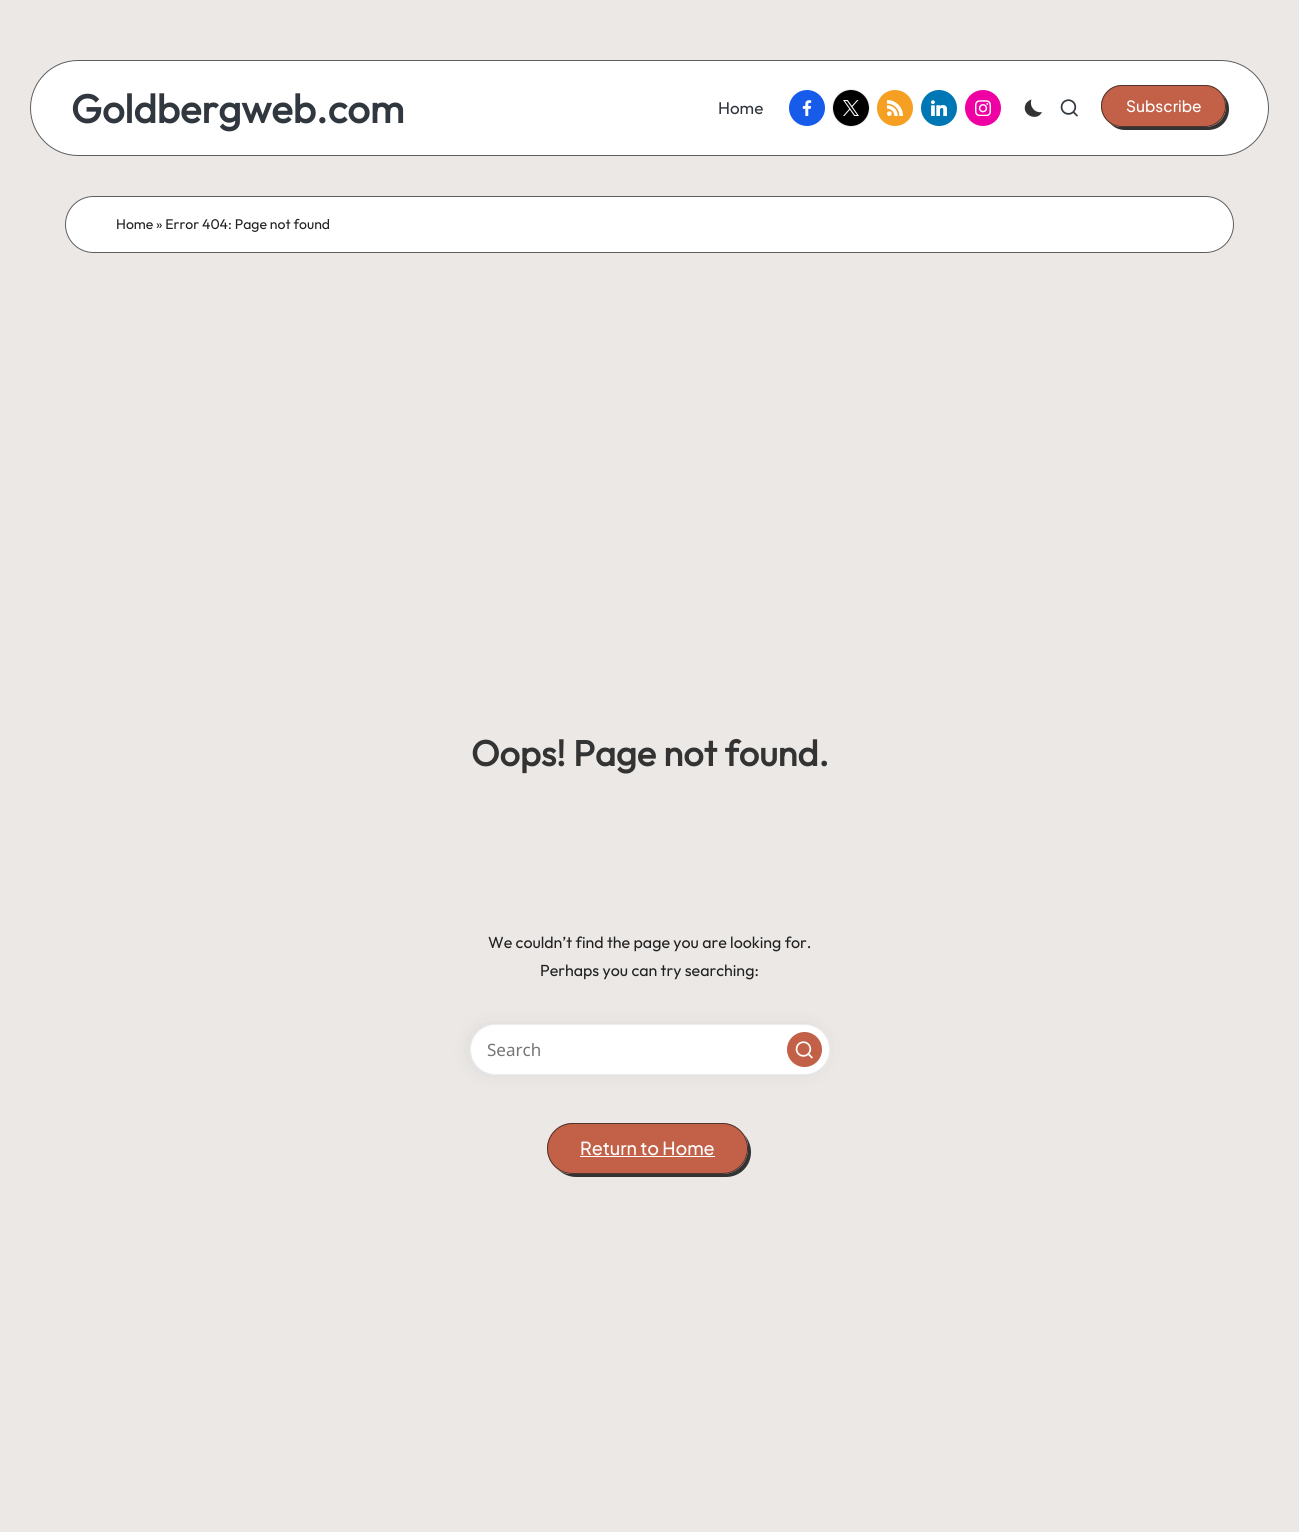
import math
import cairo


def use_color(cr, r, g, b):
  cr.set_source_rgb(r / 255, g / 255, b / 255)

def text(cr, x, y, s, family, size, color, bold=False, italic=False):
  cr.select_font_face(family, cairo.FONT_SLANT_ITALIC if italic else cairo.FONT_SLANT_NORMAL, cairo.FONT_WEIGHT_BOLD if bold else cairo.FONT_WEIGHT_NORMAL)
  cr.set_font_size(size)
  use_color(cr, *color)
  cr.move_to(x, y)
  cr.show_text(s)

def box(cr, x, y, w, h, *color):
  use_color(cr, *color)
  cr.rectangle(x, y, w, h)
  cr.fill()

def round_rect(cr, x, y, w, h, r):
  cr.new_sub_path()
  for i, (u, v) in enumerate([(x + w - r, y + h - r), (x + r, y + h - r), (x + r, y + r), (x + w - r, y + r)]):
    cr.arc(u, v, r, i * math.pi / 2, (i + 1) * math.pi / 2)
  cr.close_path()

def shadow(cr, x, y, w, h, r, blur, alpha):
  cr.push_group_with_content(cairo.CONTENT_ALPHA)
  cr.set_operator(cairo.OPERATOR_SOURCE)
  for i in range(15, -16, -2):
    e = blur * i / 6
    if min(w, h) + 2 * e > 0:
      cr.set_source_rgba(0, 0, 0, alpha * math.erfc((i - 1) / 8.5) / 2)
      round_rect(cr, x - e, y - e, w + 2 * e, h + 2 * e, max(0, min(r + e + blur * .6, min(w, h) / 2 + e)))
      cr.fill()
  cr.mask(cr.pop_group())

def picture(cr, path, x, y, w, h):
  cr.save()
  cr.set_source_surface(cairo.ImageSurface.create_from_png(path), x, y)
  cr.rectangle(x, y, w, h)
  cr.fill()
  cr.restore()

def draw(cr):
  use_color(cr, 235, 232, 230)
  cr.paint()
  use_color(cr, 255, 255, 255)
  round_rect(cr, 30, 60, 1239, 96, 48)
  cr.fill()
  round_rect(cr, 30.5, 60.5, 1238, 95, 47.5)
  cr.set_source_rgba(0.153, 0.153, 0.153, 0.75)
  cr.set_line_width(1)
  cr.stroke()
  use_color(cr, 23, 91, 235)
  cr.arc(807, 108, 18, 0, 2 * math.pi)
  cr.fill()
  picture(cr, "img_01.png", 802, 100, 10, 16)
  use_color(cr, 0, 0, 0)
  cr.arc(851, 108, 18, 0, 2 * math.pi)
  cr.fill()
  cr.arc(851, 108, 18.5, 0, 2 * math.pi)
  cr.set_source_rgba(0.745, 0.745, 0.745, 0.3)
  cr.stroke()
  picture(cr, "img_02.png", 843, 100, 16, 16)
  use_color(cr, 245, 159, 35)
  cr.arc(895, 108, 18, 0, 2 * math.pi)
  cr.fill()
  picture(cr, "img_03.png", 887, 100, 16, 16)
  use_color(cr, 0, 119, 181)
  cr.arc(939, 108, 18, 0, 2 * math.pi)
  cr.fill()
  picture(cr, "img_04.png", 931, 100, 16, 16)
  use_color(cr, 239, 0, 162)
  cr.arc(983, 108, 18, 0, 2 * math.pi)
  cr.fill()
  picture(cr, "img_05.png", 975, 100, 16, 16)
  use_color(cr, 51, 51, 51)
  cr.new_path()
  cr.move_to(1042, 112)
  cr.curve_to(1035, 113.5, 1029, 106.5, 1031.5, 99.5)
  cr.curve_to(1029.5, 100, 1027.5, 101.5, 1026, 103.5)
  cr.curve_to(1020, 114.5, 1037, 122.5, 1042, 112)
  cr.close_path()
  cr.fill()
  picture(cr, "img_06.png", 1060, 99, 18, 18)
  cr.new_path()
  cr.move_to(1109, 122)
  cr.curve_to(1113, 127, 1118, 130, 1125, 130)
  cr.line_to(1208, 130)
  cr.curve_to(1220, 130, 1229, 121, 1229, 109)
  cr.curve_to(1229, 102, 1226, 97, 1221, 93)
  cr.curve_to(1224, 96, 1226, 101, 1226, 106)
  cr.curve_to(1226, 118, 1217, 127, 1205, 127)
  cr.line_to(1122, 127)
  cr.curve_to(1117, 127, 1112, 125, 1109, 122)
  cr.close_path()
  cr.fill()
  use_color(cr, 194, 97, 72)
  round_rect(cr, 1101, 85, 125, 42, 21)
  cr.fill()
  round_rect(cr, 1101.5, 85.5, 124, 41, 20.5)
  cr.set_source_rgba(0.153, 0.153, 0.153, 0.75)
  cr.stroke()
  use_color(cr, 255, 255, 255)
  round_rect(cr, 65, 196, 1169, 57, 28.5)
  cr.fill()
  round_rect(cr, 65.5, 196.5, 1168, 56, 28)
  cr.set_source_rgba(0.153, 0.153, 0.153, 0.75)
  cr.stroke()
  use_color(cr, 0, 0, 0)
  shadow(cr, 483, 1040, 328, 19, 9.5, 16, 0.15)
  use_color(cr, 255, 255, 255)
  round_rect(cr, 470, 1024, 360, 51, 25.5)
  cr.fill()
  round_rect(cr, 470.5, 1024.5, 359, 50, 25)
  cr.set_source_rgba(0.745, 0.745, 0.745, 0.3)
  cr.stroke()
  use_color(cr, 194, 97, 72)
  cr.arc(804.5, 1049.5, 17.5, 0, 2 * math.pi)
  cr.fill()
  picture(cr, "img_07.png", 795, 1041, 18, 18)
  use_color(cr, 51, 51, 51)
  cr.new_path()
  cr.move_to(556, 1168)
  cr.curve_to(561, 1173, 568, 1177, 576, 1177)
  cr.line_to(726, 1177)
  cr.curve_to(740, 1177, 751, 1166, 751, 1152)
  cr.curve_to(751, 1144, 747, 1137, 742, 1132)
  cr.curve_to(746, 1136, 748, 1142, 748, 1148)
  cr.curve_to(748, 1163, 737, 1174, 722, 1174)
  cr.line_to(572, 1174)
  cr.curve_to(566, 1174, 560, 1172, 556, 1168)
  cr.close_path()
  cr.fill()
  use_color(cr, 194, 97, 72)
  round_rect(cr, 547, 1123, 201, 51, 25.5)
  cr.fill()
  round_rect(cr, 547.5, 1123.5, 200, 50, 25)
  cr.set_source_rgba(0.153, 0.153, 0.153, 0.75)
  cr.stroke()
  box(cr, 580, 1156, 135, 1, 255, 255, 255)
  text(cr, 71, 123, "Goldbergweb.com", "Outfit", 40, (48, 55, 62), bold=True)
  text(cr, 718, 114, "Home", "Outfit Thin", 17, (48, 55, 62))
  text(cr, 1126, 112, "Subscribe", "Plus Jakarta Sans Medium", 15.5, (255, 255, 255))
  text(cr, 116, 229, "Home", "Outfit Thin", 14, (33, 33, 33))
  text(cr, 156, 229, "» Error 404: Page not found", "Outfit Thin", 14, (33, 33, 33))
  text(cr, 471, 766, "Oops! Page not found.", "Outfit", 36, (51, 51, 51), bold=True)
  text(cr, 488, 948, "We couldn’t find the page you are looking for.", "Outfit Thin", 16, (33, 33, 33))
  text(cr, 540, 976, "Perhaps you can try searching:", "Outfit Thin", 16, (33, 33, 33))
  text(cr, 487, 1056, "Search", "Noto Sans", 17, (117, 117, 117))
  text(cr, 580, 1155, "Return to Home", "Plus Jakarta Sans Medium", 18, (255, 255, 255))


surface = cairo.ImageSurface(cairo.FORMAT_RGB24, 1299, 1532)
cr = cairo.Context(surface)
options = cairo.FontOptions()
options.set_hint_metrics(cairo.HINT_METRICS_OFF)
options.set_hint_style(cairo.HINT_STYLE_NONE)
cr.set_font_options(options)
cr.set_miter_limit(4)
draw(cr)
surface.write_to_png("out.png")
